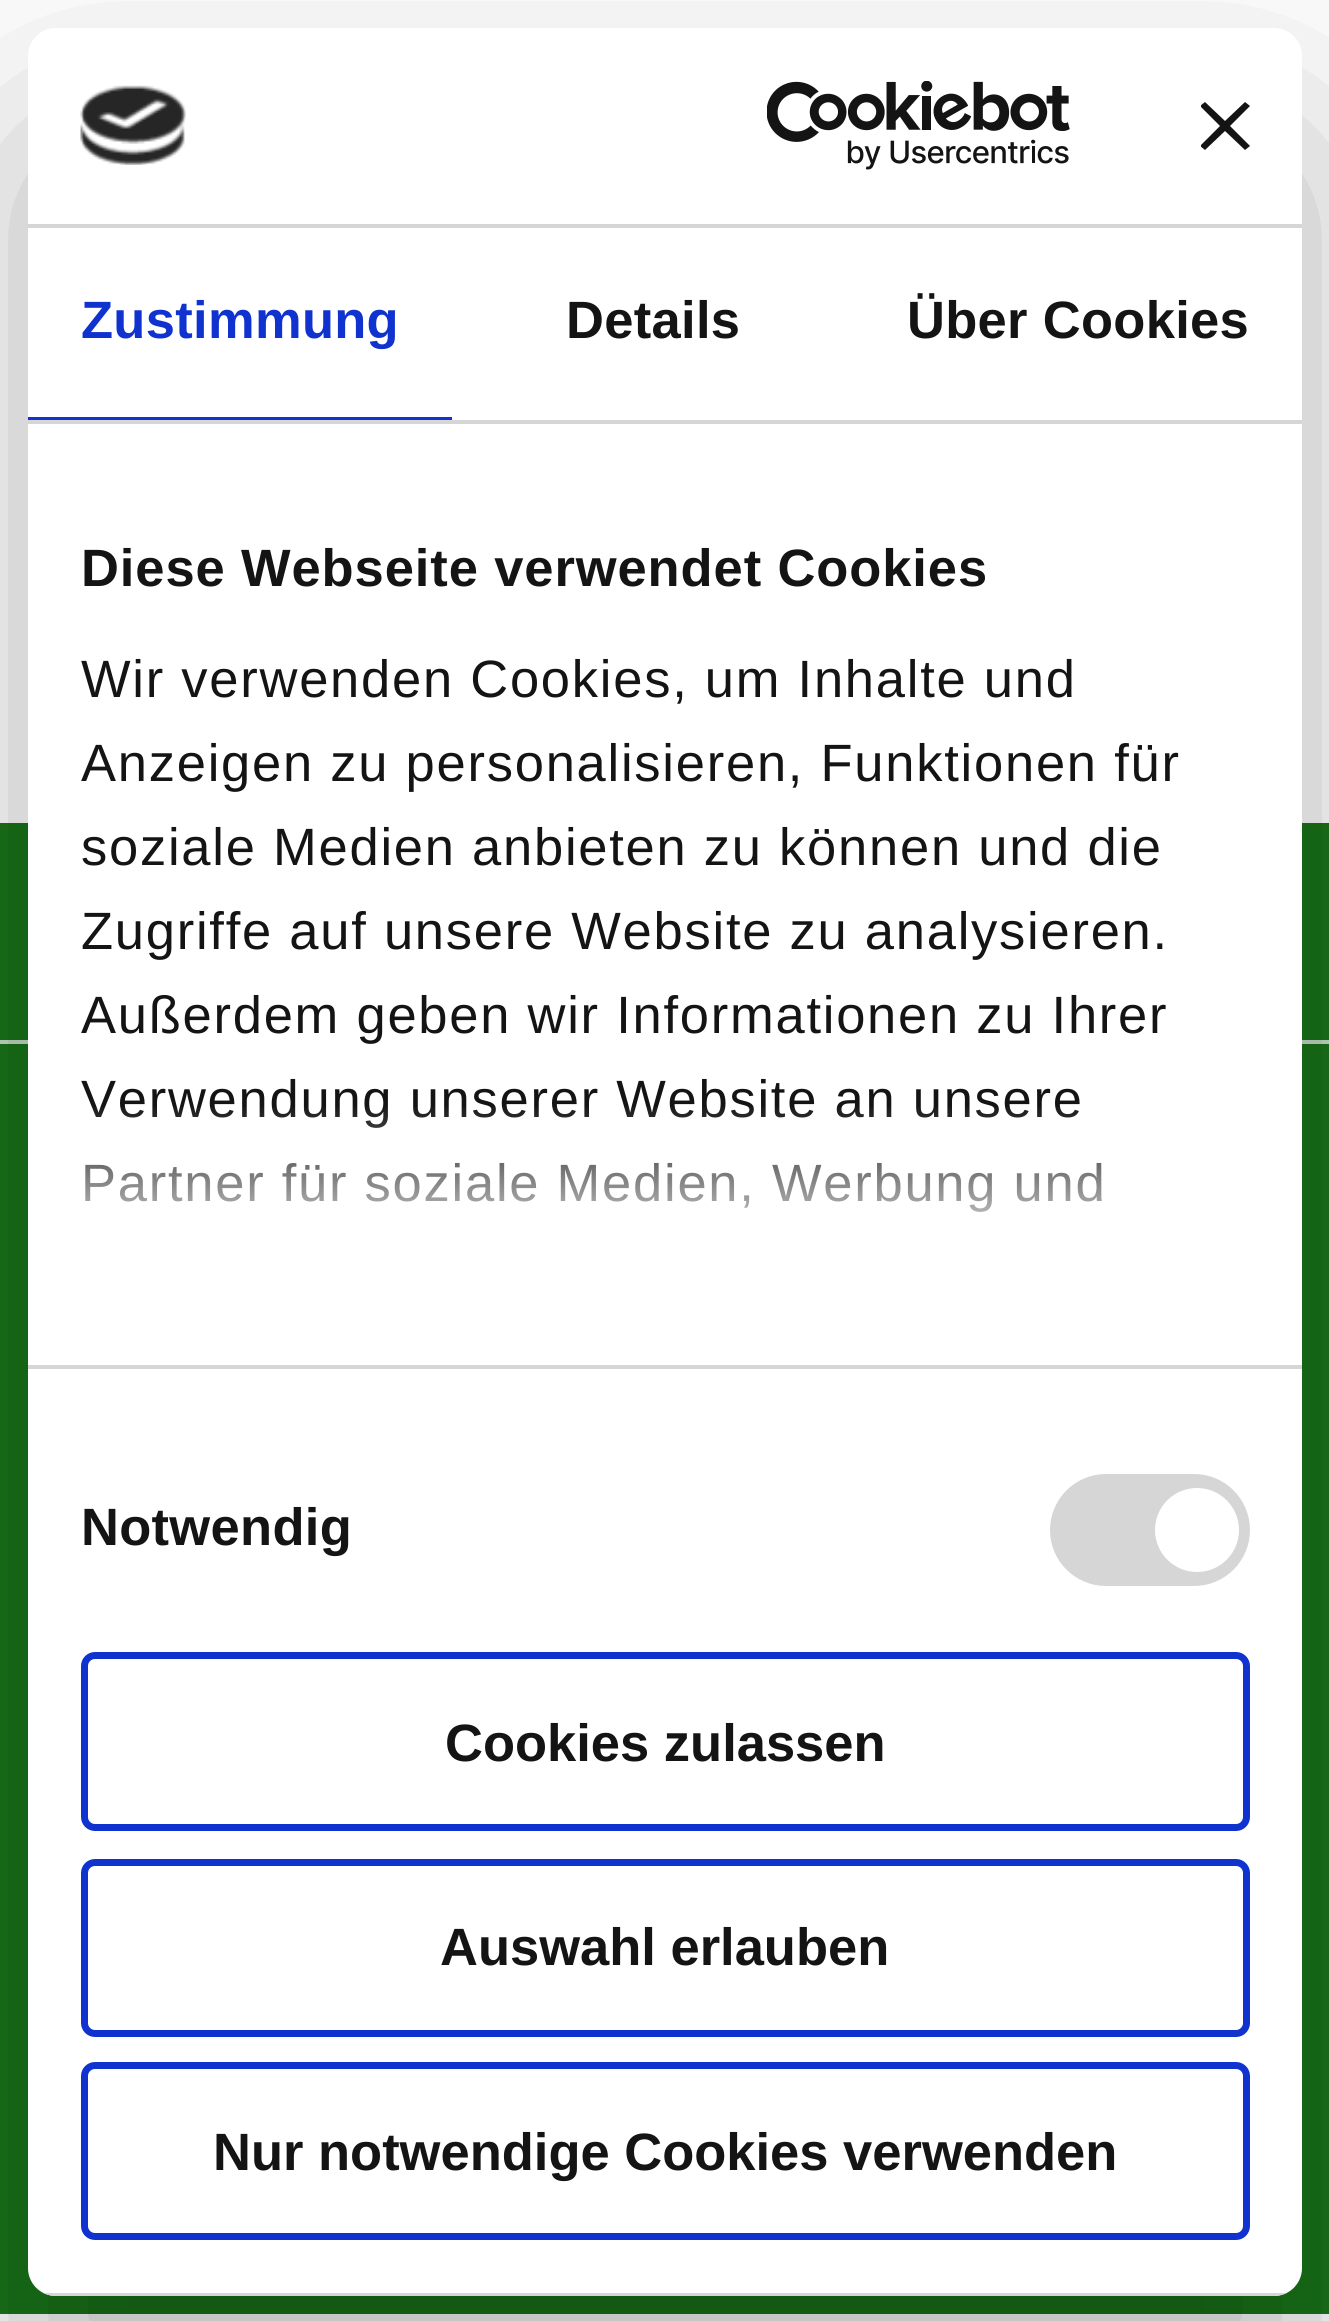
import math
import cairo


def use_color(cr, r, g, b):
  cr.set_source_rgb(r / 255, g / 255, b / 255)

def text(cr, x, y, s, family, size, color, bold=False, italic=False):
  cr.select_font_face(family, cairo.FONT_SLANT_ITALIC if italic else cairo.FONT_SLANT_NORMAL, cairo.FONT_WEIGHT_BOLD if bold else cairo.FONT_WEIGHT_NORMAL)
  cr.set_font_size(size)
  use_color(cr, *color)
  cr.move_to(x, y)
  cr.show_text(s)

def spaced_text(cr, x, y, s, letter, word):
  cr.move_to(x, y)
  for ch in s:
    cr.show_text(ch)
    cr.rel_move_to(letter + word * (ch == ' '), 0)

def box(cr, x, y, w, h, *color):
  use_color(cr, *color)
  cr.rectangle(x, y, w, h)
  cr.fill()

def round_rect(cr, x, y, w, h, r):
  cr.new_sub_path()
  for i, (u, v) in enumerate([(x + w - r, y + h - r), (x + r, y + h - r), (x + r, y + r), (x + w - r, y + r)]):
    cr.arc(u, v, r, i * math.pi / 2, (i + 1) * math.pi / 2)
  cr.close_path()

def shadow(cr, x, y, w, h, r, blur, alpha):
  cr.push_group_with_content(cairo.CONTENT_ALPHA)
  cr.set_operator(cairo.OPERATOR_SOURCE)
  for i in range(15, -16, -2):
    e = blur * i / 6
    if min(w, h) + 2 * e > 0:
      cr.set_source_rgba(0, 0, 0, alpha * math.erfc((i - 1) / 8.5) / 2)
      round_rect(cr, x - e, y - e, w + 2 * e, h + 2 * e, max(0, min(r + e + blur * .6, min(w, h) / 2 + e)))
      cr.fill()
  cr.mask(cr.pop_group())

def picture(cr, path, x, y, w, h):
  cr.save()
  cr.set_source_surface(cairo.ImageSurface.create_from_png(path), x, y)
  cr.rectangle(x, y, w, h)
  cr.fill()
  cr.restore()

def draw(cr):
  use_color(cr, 255, 255, 255)
  cr.paint()
  box(cr, 0, 823, 1329, 1491, 25, 117, 25)
  box(cr, 0, 1040, 1329, 4, 197, 220, 197)
  use_color(cr, 0, 0, 0)
  shadow(cr, 28, 140, 1274, 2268, 28, 119, 0.3)
  use_color(cr, 255, 255, 255)
  round_rect(cr, 28, 28, 1274, 2268, 28)
  cr.fill()
  box(cr, 28, 224, 1274, 4, 214, 214, 214)
  picture(cr, "img_01.png", 80, 85, 106, 80)
  picture(cr, "img_02.png", 767, 81, 303, 89)
  cr.save()
  cr.rectangle(1201, 102, 49, 49)
  cr.clip()
  use_color(cr, 20, 20, 20)
  cr.new_path()
  cr.move_to(1250, 106)
  cr.line_to(1245, 102)
  cr.line_to(1225, 121)
  cr.line_to(1205, 102)
  cr.line_to(1200, 106)
  cr.line_to(1220, 126)
  cr.line_to(1200, 146)
  cr.line_to(1205, 150)
  cr.line_to(1225, 131)
  cr.line_to(1245, 150)
  cr.line_to(1250, 146)
  cr.line_to(1230, 126)
  cr.close_path()
  cr.fill()
  cr.restore()
  box(cr, 28, 420, 1274, 4, 214, 214, 214)
  box(cr, 28, 417, 424, 3, 16, 50, 207)
  box(cr, 28, 1365, 1274, 4, 214, 214, 214)
  round_rect(cr, 1050, 1474, 200, 112, 56)
  cr.fill()
  use_color(cr, 255, 255, 255)
  cr.arc(1197, 1530, 42, 0, 2 * math.pi)
  cr.fill()
  cr.save()
  round_rect(cr, 28, 28, 1274, 2268, 28)
  cr.clip()
  box(cr, 43, 2293, 1244, 3, 214, 214, 214)
  cr.restore()
  round_rect(cr, 84.5, 1655.5, 1162, 172, 10.5)
  use_color(cr, 16, 50, 207)
  cr.set_line_width(7)
  cr.stroke()
  round_rect(cr, 84.5, 1862.5, 1162, 171, 10.5)
  cr.stroke()
  round_rect(cr, 84.5, 2065.5, 1162, 171, 10.5)
  cr.stroke()
  cr.select_font_face("Liberation Sans", cairo.FONT_SLANT_NORMAL, cairo.FONT_WEIGHT_BOLD)
  cr.set_font_size(52.5)
  spaced_text(cr, 81, 338, "Zustimmung", 0.3, 0)
  use_color(cr, 20, 20, 20)
  spaced_text(cr, 566, 338, "Details", 0.3, 0)
  spaced_text(cr, 907, 338, "Über Cookies", 0.3, 0)
  spaced_text(cr, 81, 586, "Diese Webseite verwendet Cookies", 0.9, 0)
  cr.select_font_face("Liberation Sans")
  spaced_text(cr, 81, 697, "Wir verwenden Cookies, um Inhalte und", 1.75, 0)
  spaced_text(cr, 81, 781, "Anzeigen zu personalisieren, Funktionen für", 1.75, 0)
  spaced_text(cr, 81, 865, "soziale Medien anbieten zu können und die", 1.75, 0)
  spaced_text(cr, 81, 949, "Zugriffe auf unsere Website zu analysieren.", 1.75, 0)
  spaced_text(cr, 81, 1033, "Außerdem geben wir Informationen zu Ihrer", 1.75, 0)
  spaced_text(cr, 81, 1117, "Verwendung unserer Website an unsere", 1.75, 0)
  spaced_text(cr, 81, 1201, "Partner für soziale Medien, Werbung und", 1.75, 0)
  gradient = cairo.LinearGradient(642, 1365, 642, 1103)
  gradient.add_color_stop_rgba(0, 1, 1, 1, 1)
  gradient.add_color_stop_rgba(0.5, 1, 1, 1, 0.8)
  gradient.add_color_stop_rgba(1, 1, 1, 1, 0)
  cr.set_source(gradient)
  cr.rectangle(84, 1107, 1017, 105)
  cr.fill()
  cr.select_font_face("Liberation Sans", cairo.FONT_SLANT_NORMAL, cairo.FONT_WEIGHT_BOLD)
  use_color(cr, 20, 20, 20)
  spaced_text(cr, 81, 1545, "Notwendig", 0.3, 0)
  text(cr, 445, 1761, "Cookies zulassen", "Liberation Sans", 52.5, (20, 20, 20), bold=True)
  text(cr, 440, 1965, "Auswahl erlauben", "Liberation Sans", 52.5, (20, 20, 20), bold=True)
  text(cr, 213, 2170, "Nur notwendige Cookies verwenden", "Liberation Sans", 52.5, (20, 20, 20), bold=True)


surface = cairo.ImageSurface(cairo.FORMAT_RGB24, 1329, 2321)
cr = cairo.Context(surface)
options = cairo.FontOptions()
options.set_hint_metrics(cairo.HINT_METRICS_OFF)
options.set_hint_style(cairo.HINT_STYLE_NONE)
cr.set_font_options(options)
cr.set_miter_limit(4)
draw(cr)
surface.write_to_png("out.png")
